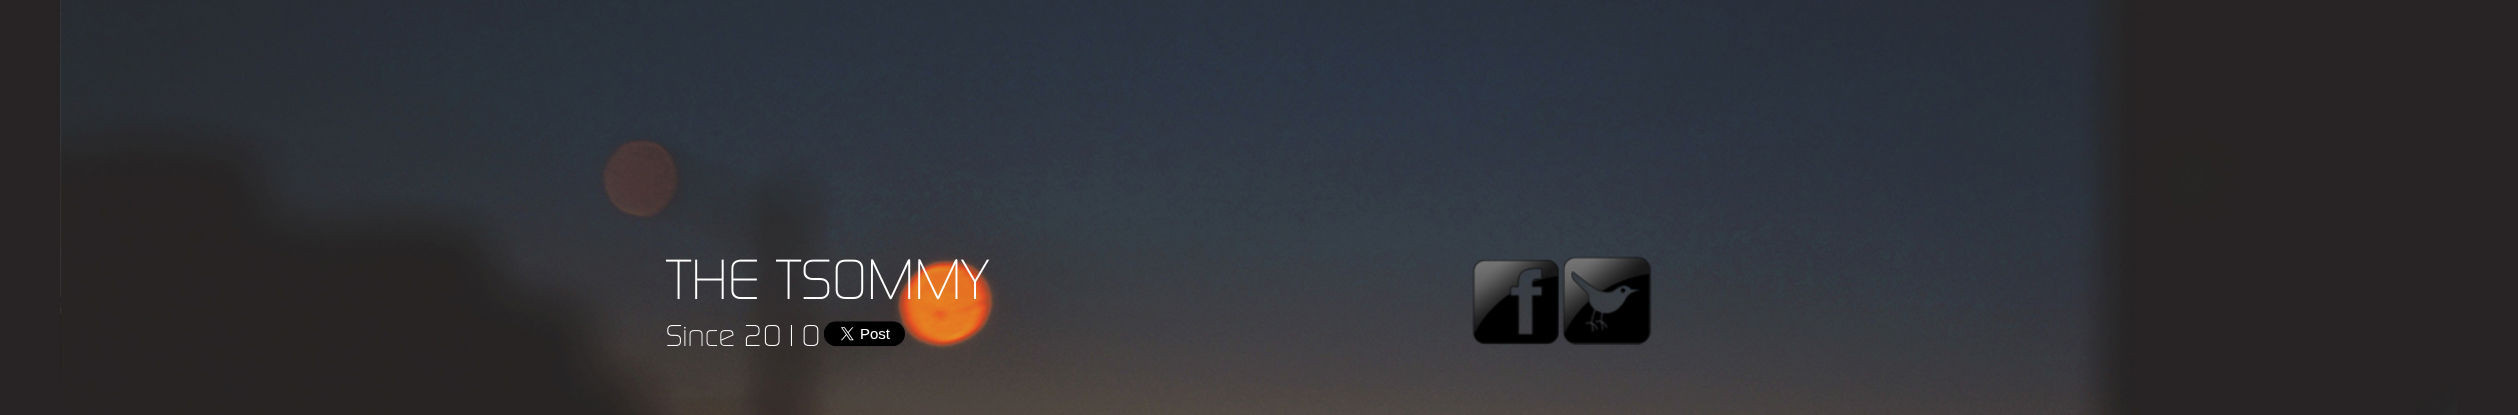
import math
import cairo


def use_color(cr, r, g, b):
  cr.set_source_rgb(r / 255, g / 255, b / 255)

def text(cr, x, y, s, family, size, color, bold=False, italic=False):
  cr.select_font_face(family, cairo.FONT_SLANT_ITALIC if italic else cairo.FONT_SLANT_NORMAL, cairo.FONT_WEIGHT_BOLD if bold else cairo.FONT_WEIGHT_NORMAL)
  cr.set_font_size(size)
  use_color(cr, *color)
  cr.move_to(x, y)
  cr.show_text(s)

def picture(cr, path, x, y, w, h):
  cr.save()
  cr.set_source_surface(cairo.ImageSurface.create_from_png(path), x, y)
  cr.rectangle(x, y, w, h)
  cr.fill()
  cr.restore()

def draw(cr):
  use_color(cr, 40, 36, 37)
  cr.paint()
  picture(cr, "img_01.png", 60, 0, 2397, 415)
  picture(cr, "img_02.png", 824, 321, 81, 26)
  picture(cr, "img_03.png", 1472, 259, 87, 86)
  picture(cr, "img_04.png", 1562, 256, 90, 89)
  text(cr, 666, 299, "THE TSOMMY", "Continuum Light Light", 56.25, (255, 255, 255))
  text(cr, 666, 346, "Since 2010", "Continuum Light Light", 30, (255, 255, 255))


surface = cairo.ImageSurface(cairo.FORMAT_RGB24, 2518, 415)
cr = cairo.Context(surface)
options = cairo.FontOptions()
options.set_hint_metrics(cairo.HINT_METRICS_OFF)
options.set_hint_style(cairo.HINT_STYLE_NONE)
cr.set_font_options(options)
cr.set_miter_limit(4)
draw(cr)
surface.write_to_png("out.png")
